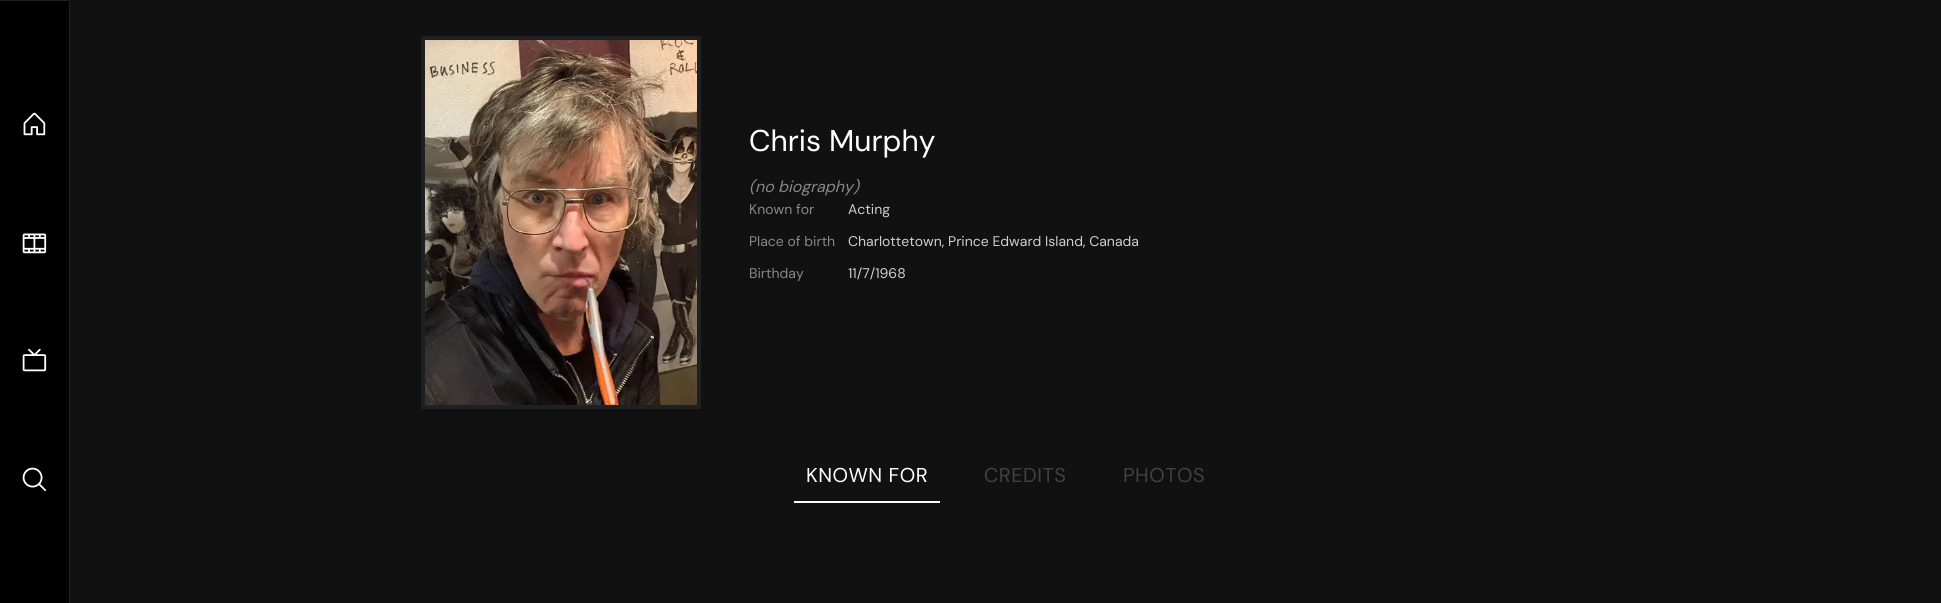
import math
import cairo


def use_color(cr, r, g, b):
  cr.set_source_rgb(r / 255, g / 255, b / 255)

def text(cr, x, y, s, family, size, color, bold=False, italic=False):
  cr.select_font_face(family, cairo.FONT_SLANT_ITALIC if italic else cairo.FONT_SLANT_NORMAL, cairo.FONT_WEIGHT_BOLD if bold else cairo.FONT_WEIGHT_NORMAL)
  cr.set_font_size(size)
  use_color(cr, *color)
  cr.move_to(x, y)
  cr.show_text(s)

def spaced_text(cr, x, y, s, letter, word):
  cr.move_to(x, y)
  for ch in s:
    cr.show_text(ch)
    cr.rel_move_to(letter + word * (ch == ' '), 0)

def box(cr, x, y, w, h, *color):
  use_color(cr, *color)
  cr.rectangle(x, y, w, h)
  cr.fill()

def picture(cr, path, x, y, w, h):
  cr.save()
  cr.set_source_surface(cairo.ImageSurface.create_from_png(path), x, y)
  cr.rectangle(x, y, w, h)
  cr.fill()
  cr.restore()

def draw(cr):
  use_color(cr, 17, 17, 17)
  cr.paint()
  box(cr, 0, 0, 70, 603, 0, 0, 0)
  use_color(cr, 31, 33, 35)
  cr.new_path()
  cr.move_to(0, 0)
  cr.line_to(70, 0)
  cr.line_to(69, 1)
  cr.line_to(0, 1)
  cr.close_path()
  cr.fill()
  cr.set_source_rgba(0.612, 0.639, 0.686, 0.2)
  cr.new_path()
  cr.move_to(70, 0)
  cr.line_to(70, 603)
  cr.line_to(69, 603)
  cr.line_to(69, 1)
  cr.close_path()
  cr.fill()
  picture(cr, "img_01.png", 23, 112, 23, 24)
  picture(cr, "img_02.png", 22, 233, 25, 21)
  picture(cr, "img_03.png", 22, 348, 25, 24)
  picture(cr, "img_04.png", 22, 467, 25, 24)
  cr.rectangle(423, 38, 276, 369)
  use_color(cr, 31, 32, 33)
  cr.set_line_width(4)
  cr.stroke()
  picture(cr, "img_05.png", 425, 40, 272, 365)
  box(cr, 794, 501, 146, 2, 255, 255, 255)
  text(cr, 749, 151, "Chris Murphy", "DM Sans", 30, (255, 255, 255))
  text(cr, 749, 192, "(no biography)", "DM Sans", 16, (136, 136, 136), italic=True)
  text(cr, 749, 214, "Known for", "DM Sans", 14, (136, 136, 136))
  text(cr, 848, 214, "Acting", "DM Sans", 14, (207, 207, 207))
  text(cr, 749, 246, "Place of birth", "DM Sans", 14, (136, 136, 136))
  text(cr, 848, 246, "Charlottetown, Prince Edward Island, Canada", "DM Sans", 14, (207, 207, 207))
  text(cr, 749, 278, "Birthday", "DM Sans", 14, (136, 136, 136))
  text(cr, 848, 278, "11/7/1968", "DM Sans", 14, (207, 207, 207))
  cr.set_font_size(20)
  use_color(cr, 255, 255, 255)
  spaced_text(cr, 806, 482, "KNOWN FOR", 0.5, 0)
  use_color(cr, 65, 65, 65)
  spaced_text(cr, 984, 482, "CREDITS", 0.5, 0)
  spaced_text(cr, 1123, 482, "PHOTOS", 0.5, 0)


surface = cairo.ImageSurface(cairo.FORMAT_RGB24, 1941, 603)
cr = cairo.Context(surface)
options = cairo.FontOptions()
options.set_hint_metrics(cairo.HINT_METRICS_OFF)
options.set_hint_style(cairo.HINT_STYLE_NONE)
cr.set_font_options(options)
cr.set_miter_limit(4)
draw(cr)
surface.write_to_png("out.png")
